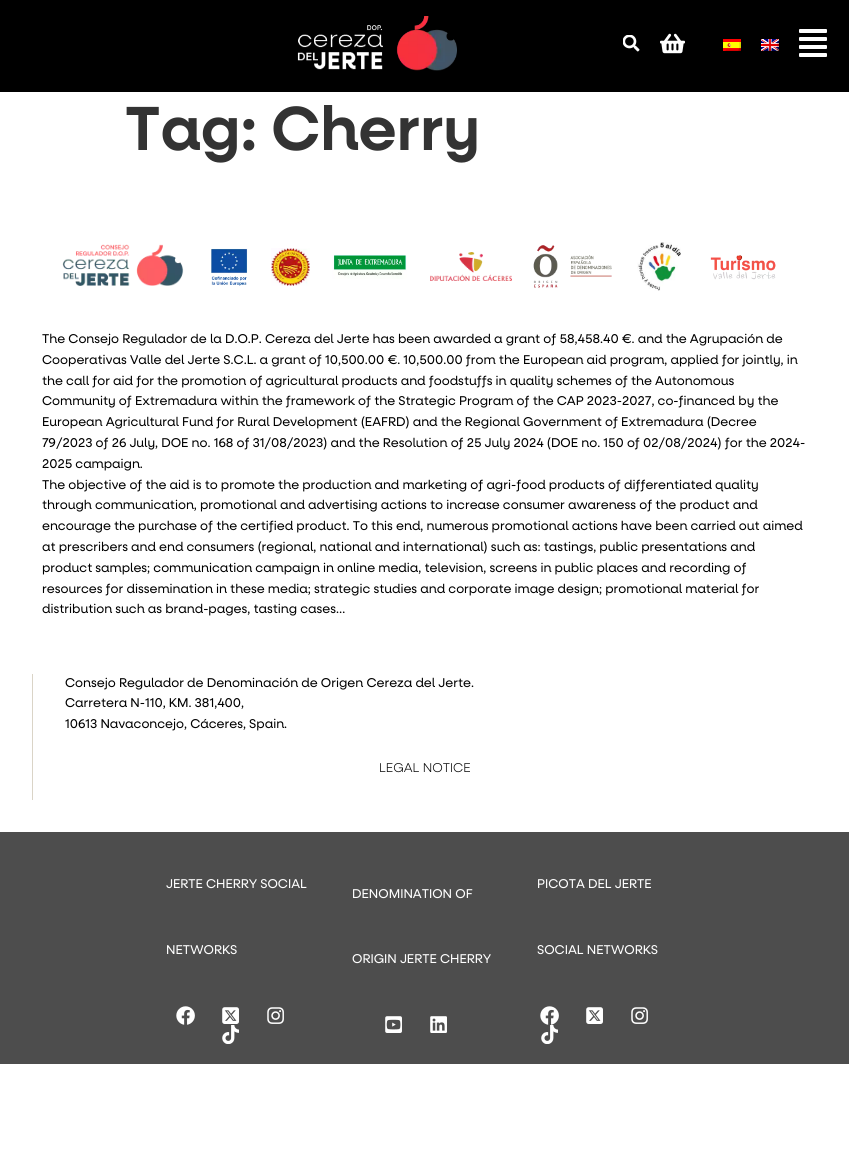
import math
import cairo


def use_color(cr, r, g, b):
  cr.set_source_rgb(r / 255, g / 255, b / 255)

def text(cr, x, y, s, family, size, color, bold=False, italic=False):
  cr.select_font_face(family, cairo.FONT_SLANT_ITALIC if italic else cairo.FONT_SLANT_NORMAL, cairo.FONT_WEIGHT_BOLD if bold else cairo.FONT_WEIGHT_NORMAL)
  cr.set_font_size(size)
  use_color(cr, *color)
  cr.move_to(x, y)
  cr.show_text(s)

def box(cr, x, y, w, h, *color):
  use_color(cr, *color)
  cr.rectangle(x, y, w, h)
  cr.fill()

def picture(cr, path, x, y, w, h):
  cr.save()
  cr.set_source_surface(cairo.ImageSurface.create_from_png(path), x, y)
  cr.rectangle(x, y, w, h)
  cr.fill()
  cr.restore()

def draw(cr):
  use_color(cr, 255, 255, 255)
  cr.paint()
  box(cr, 0, 0, 849, 92, 0, 0, 0)
  picture(cr, "img_01.png", 297, 16, 160, 55)
  picture(cr, "img_02.png", 623, 35, 17, 17)
  picture(cr, "img_03.png", 660, 33, 25, 21)
  picture(cr, "img_04.png", 723, 39, 18, 12)
  picture(cr, "img_05.png", 761, 39, 18, 12)
  picture(cr, "img_06.png", 799, 29, 28, 28)
  picture(cr, "img_07.png", 62, 244, 122, 42)
  picture(cr, "img_08.png", 211, 248, 37, 38)
  picture(cr, "img_09.png", 271, 248, 39, 38)
  picture(cr, "img_10.png", 332, 255, 75, 24)
  picture(cr, "img_11.png", 430, 252, 82, 29)
  picture(cr, "img_12.png", 533, 245, 79, 43)
  picture(cr, "img_13.png", 637, 242, 44, 49)
  picture(cr, "img_14.png", 710, 255, 66, 25)
  box(cr, 32, 674, 1, 126, 218, 212, 199)
  box(cr, 0, 832, 849, 232, 77, 77, 77)
  picture(cr, "img_15.png", 176, 1006, 19, 19)
  picture(cr, "img_16.png", 222, 1007, 17, 17)
  picture(cr, "img_17.png", 267, 1007, 17, 17)
  picture(cr, "img_18.png", 222, 1025, 17, 19)
  picture(cr, "img_19.png", 385, 1016, 17, 17)
  picture(cr, "img_20.png", 430, 1016, 17, 17)
  picture(cr, "img_15.png", 540, 1006, 19, 19)
  picture(cr, "img_16.png", 586, 1007, 17, 17)
  picture(cr, "img_17.png", 631, 1007, 17, 17)
  picture(cr, "img_18.png", 541, 1025, 17, 19)
  text(cr, 125, 150, "Tag: Cherry", "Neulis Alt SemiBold", 62.5, (51, 51, 51))
  text(cr, 42, 343, "The Consejo Regulador de la D.O.P. Cereza del Jerte has been awarded a grant of 58,458.40 €. and the Agrupación de", "Neulis Alt", 12.8, (0, 0, 0))
  text(cr, 42, 364, "Cooperativas Valle del Jerte S.C.L. a grant of 10,500.00 €. 10,500.00 from the European aid program, applied for jointly, in", "Neulis Alt", 12.8, (0, 0, 0))
  text(cr, 42, 385, "the call for aid for the promotion of agricultural products and foodstuffs in quality schemes of the Autonomous", "Neulis Alt", 12.8, (0, 0, 0))
  text(cr, 42, 405, "Community of Extremadura within the framework of the Strategic Program of the CAP 2023-2027, co-financed by the", "Neulis Alt", 12.8, (0, 0, 0))
  text(cr, 42, 426, "European Agricultural Fund for Rural Development (EAFRD) and the Regional Government of Extremadura (Decree", "Neulis Alt", 12.8, (0, 0, 0))
  text(cr, 42, 447, "79/2023 of 26 July, DOE no. 168 of 31/08/2023) and the Resolution of 25 July 2024 (DOE no. 150 of 02/08/2024) for the 2024-", "Neulis Alt", 12.8, (0, 0, 0))
  text(cr, 42, 468, "2025 campaign.", "Neulis Alt", 12.8, (0, 0, 0))
  text(cr, 42, 489, "The objective of the aid is to promote the production and marketing of agri-food products of differentiated quality", "Neulis Alt", 12.8, (0, 0, 0))
  text(cr, 42, 509, "through communication, promotional and advertising actions to increase consumer awareness of the product and", "Neulis Alt", 12.8, (0, 0, 0))
  text(cr, 42, 530, "encourage the purchase of the certified product. To this end, numerous promotional actions have been carried out aimed", "Neulis Alt", 12.8, (0, 0, 0))
  text(cr, 42, 551, "at prescribers and end consumers (regional, national and international) such as: tastings, public presentations and", "Neulis Alt", 12.8, (0, 0, 0))
  text(cr, 42, 572, "product samples; communication campaign in online media, television, screens in public places and recording of", "Neulis Alt", 12.8, (0, 0, 0))
  text(cr, 42, 593, "resources for dissemination in these media; strategic studies and corporate image design; promotional material for", "Neulis Alt", 12.8, (0, 0, 0))
  text(cr, 42, 613, "distribution such as brand-pages, tasting cases…", "Neulis Alt", 12.8, (0, 0, 0))
  text(cr, 65, 687, "Consejo Regulador de Denominación de Origen Cereza del Jerte.", "Neulis Alt", 12.8, (0, 0, 0))
  text(cr, 65, 707, "Carretera N-110, KM. 381,400,", "Neulis Alt", 12.8, (0, 0, 0))
  text(cr, 65, 728, "10613 Navaconcejo, Cáceres, Spain.", "Neulis Alt", 12.8, (0, 0, 0))
  text(cr, 379, 772, "LEGAL NOTICE", "Neulis Alt Light", 12.8, (9, 9, 9))
  text(cr, 166, 888, "JERTE CHERRY SOCIAL", "Neulis Alt", 12.8, (255, 255, 255))
  text(cr, 166, 954, "NETWORKS", "Neulis Alt", 12.8, (255, 255, 255))
  text(cr, 352, 898, "DENOMINATION OF", "Neulis Alt", 12.8, (255, 255, 255))
  text(cr, 352, 963, "ORIGIN JERTE CHERRY", "Neulis Alt", 12.8, (255, 255, 255))
  text(cr, 537, 888, "PICOTA DEL JERTE", "Neulis Alt", 12.8, (255, 255, 255))
  text(cr, 537, 954, "SOCIAL NETWORKS", "Neulis Alt", 12.8, (255, 255, 255))


surface = cairo.ImageSurface(cairo.FORMAT_RGB24, 849, 1156)
cr = cairo.Context(surface)
options = cairo.FontOptions()
options.set_hint_metrics(cairo.HINT_METRICS_OFF)
options.set_hint_style(cairo.HINT_STYLE_NONE)
cr.set_font_options(options)
cr.set_miter_limit(4)
draw(cr)
surface.write_to_png("out.png")
